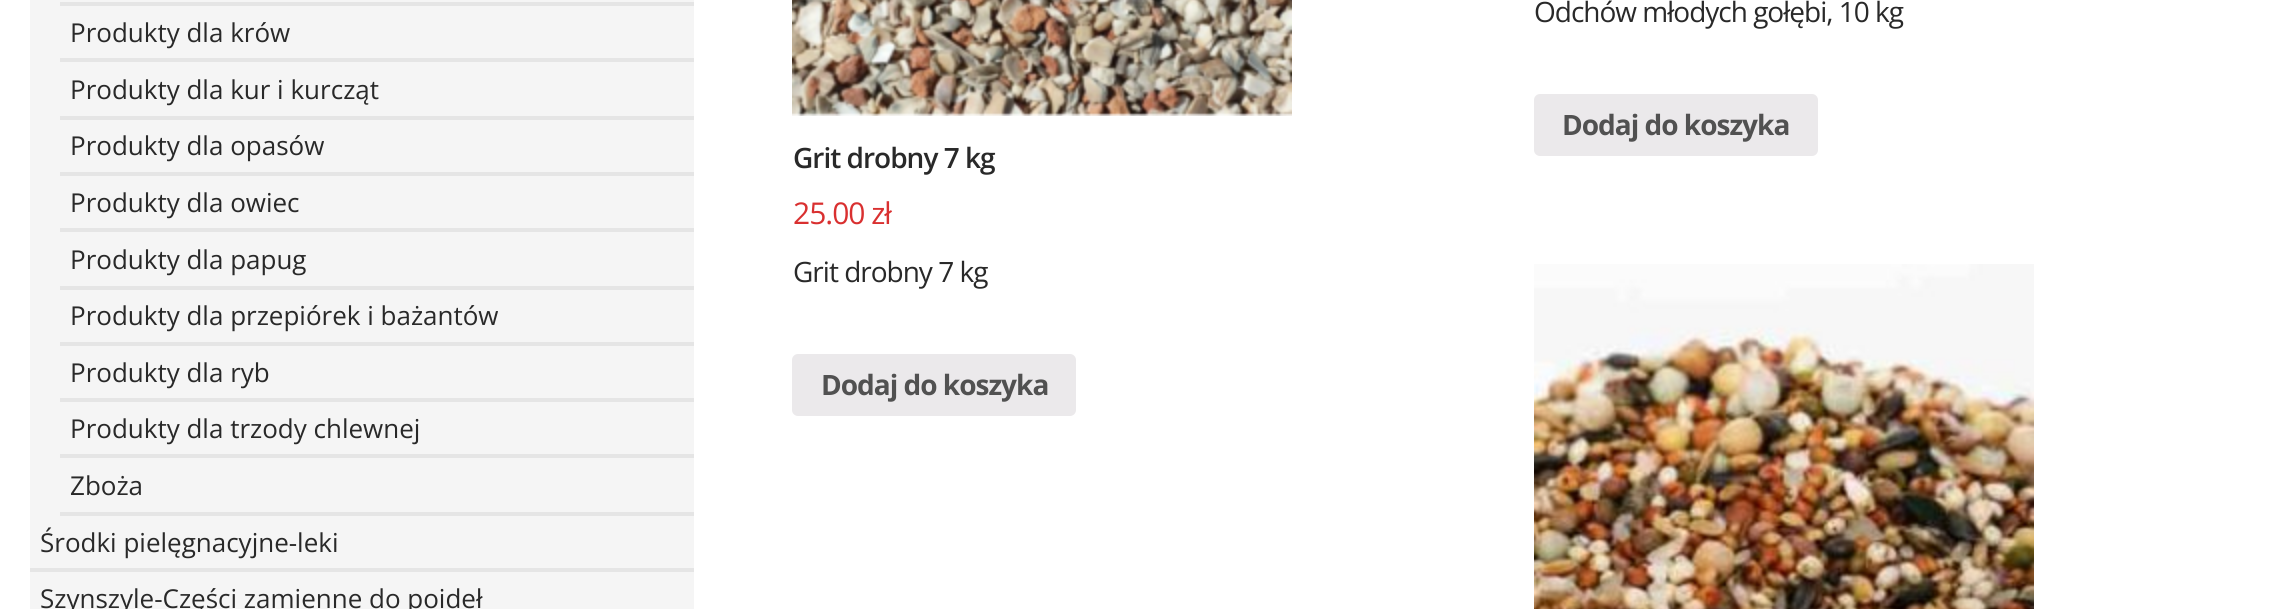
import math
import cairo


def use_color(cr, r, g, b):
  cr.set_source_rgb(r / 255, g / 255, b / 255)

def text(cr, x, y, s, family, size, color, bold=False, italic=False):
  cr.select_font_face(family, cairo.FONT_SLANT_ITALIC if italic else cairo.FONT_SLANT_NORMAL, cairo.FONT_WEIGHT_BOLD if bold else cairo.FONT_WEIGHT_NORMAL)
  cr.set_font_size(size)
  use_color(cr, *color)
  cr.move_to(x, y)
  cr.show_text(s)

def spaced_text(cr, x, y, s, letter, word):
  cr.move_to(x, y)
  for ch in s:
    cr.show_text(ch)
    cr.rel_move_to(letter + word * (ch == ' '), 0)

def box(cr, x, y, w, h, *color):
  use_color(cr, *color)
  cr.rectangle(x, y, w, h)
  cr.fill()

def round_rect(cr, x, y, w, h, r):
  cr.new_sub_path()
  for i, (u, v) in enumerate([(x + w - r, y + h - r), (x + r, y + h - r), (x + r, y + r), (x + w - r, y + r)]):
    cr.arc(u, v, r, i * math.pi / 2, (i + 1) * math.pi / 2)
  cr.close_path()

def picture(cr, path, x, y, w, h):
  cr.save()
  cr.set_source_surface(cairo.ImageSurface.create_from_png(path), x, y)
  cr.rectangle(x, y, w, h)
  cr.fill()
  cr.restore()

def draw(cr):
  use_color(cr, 255, 255, 255)
  cr.paint()
  box(cr, 30, 0, 664, 568, 245, 245, 245)
  box(cr, 60, 2, 634, 4, 229, 229, 229)
  box(cr, 60, 58, 634, 4, 229, 229, 229)
  box(cr, 60, 116, 634, 4, 229, 229, 229)
  box(cr, 60, 172, 634, 4, 229, 229, 229)
  box(cr, 60, 228, 634, 4, 229, 229, 229)
  box(cr, 60, 286, 634, 4, 229, 229, 229)
  box(cr, 60, 342, 634, 4, 229, 229, 229)
  box(cr, 60, 398, 634, 4, 229, 229, 229)
  box(cr, 60, 454, 634, 4, 229, 229, 229)
  box(cr, 60, 512, 634, 4, 229, 229, 229)
  box(cr, 30, 568, 664, 4, 229, 229, 229)
  box(cr, 30, 572, 664, 37, 245, 245, 245)
  use_color(cr, 235, 233, 235)
  round_rect(cr, 1534, 94, 284, 62, 6)
  cr.fill()
  picture(cr, "img_01.png", 792, 0, 500, 116)
  round_rect(cr, 792, 354, 284, 62, 6)
  cr.fill()
  picture(cr, "img_02.png", 1534, 264, 500, 345)
  text(cr, 70, 42, "Produkty dla krów", "Open Sans", 26, (41, 41, 41))
  text(cr, 70, 99, "Produkty dla kur i kurcząt", "Open Sans", 26, (41, 41, 41))
  text(cr, 70, 155, "Produkty dla opasów", "Open Sans", 26, (41, 41, 41))
  text(cr, 70, 212, "Produkty dla owiec", "Open Sans", 26, (41, 41, 41))
  text(cr, 70, 269, "Produkty dla papug", "Open Sans", 26, (41, 41, 41))
  text(cr, 70, 325, "Produkty dla przepiórek i bażantów", "Open Sans", 26, (41, 41, 41))
  text(cr, 70, 382, "Produkty dla ryb", "Open Sans", 26, (41, 41, 41))
  text(cr, 70, 438, "Produkty dla trzody chlewnej", "Open Sans", 26, (41, 41, 41))
  text(cr, 70, 495, "Zboża", "Open Sans", 26, (41, 41, 41))
  text(cr, 40, 552, "Środki pielęgnacyjne-leki", "Open Sans", 26, (41, 41, 41))
  text(cr, 40, 608, "Szynszyle-Części zamienne do poideł", "Open Sans", 26, (41, 41, 41))
  cr.set_font_size(28)
  spaced_text(cr, 1534, 22, "Odchów młodych gołębi, 10 kg", -1, 0)
  cr.select_font_face("Open Sans", cairo.FONT_SLANT_NORMAL, cairo.FONT_WEIGHT_BOLD)
  use_color(cr, 81, 81, 81)
  spaced_text(cr, 1562, 135, "Dodaj do koszyka", -1, 0)
  cr.select_font_face("Open Sans SemiBold")
  use_color(cr, 41, 41, 41)
  spaced_text(cr, 793, 168, "Grit drobny 7 kg", -1, 0)
  cr.select_font_face("Open Sans")
  cr.set_font_size(30)
  use_color(cr, 217, 48, 48)
  spaced_text(cr, 793, 224, "25.00 zł", -1, 0)
  cr.set_font_size(28)
  use_color(cr, 41, 41, 41)
  spaced_text(cr, 793, 282, "Grit drobny 7 kg", -1, 0)
  cr.select_font_face("Open Sans", cairo.FONT_SLANT_NORMAL, cairo.FONT_WEIGHT_BOLD)
  use_color(cr, 81, 81, 81)
  spaced_text(cr, 821, 395, "Dodaj do koszyka", -1, 0)


surface = cairo.ImageSurface(cairo.FORMAT_RGB24, 2273, 609)
cr = cairo.Context(surface)
options = cairo.FontOptions()
options.set_hint_metrics(cairo.HINT_METRICS_OFF)
options.set_hint_style(cairo.HINT_STYLE_NONE)
cr.set_font_options(options)
cr.set_miter_limit(4)
draw(cr)
surface.write_to_png("out.png")
